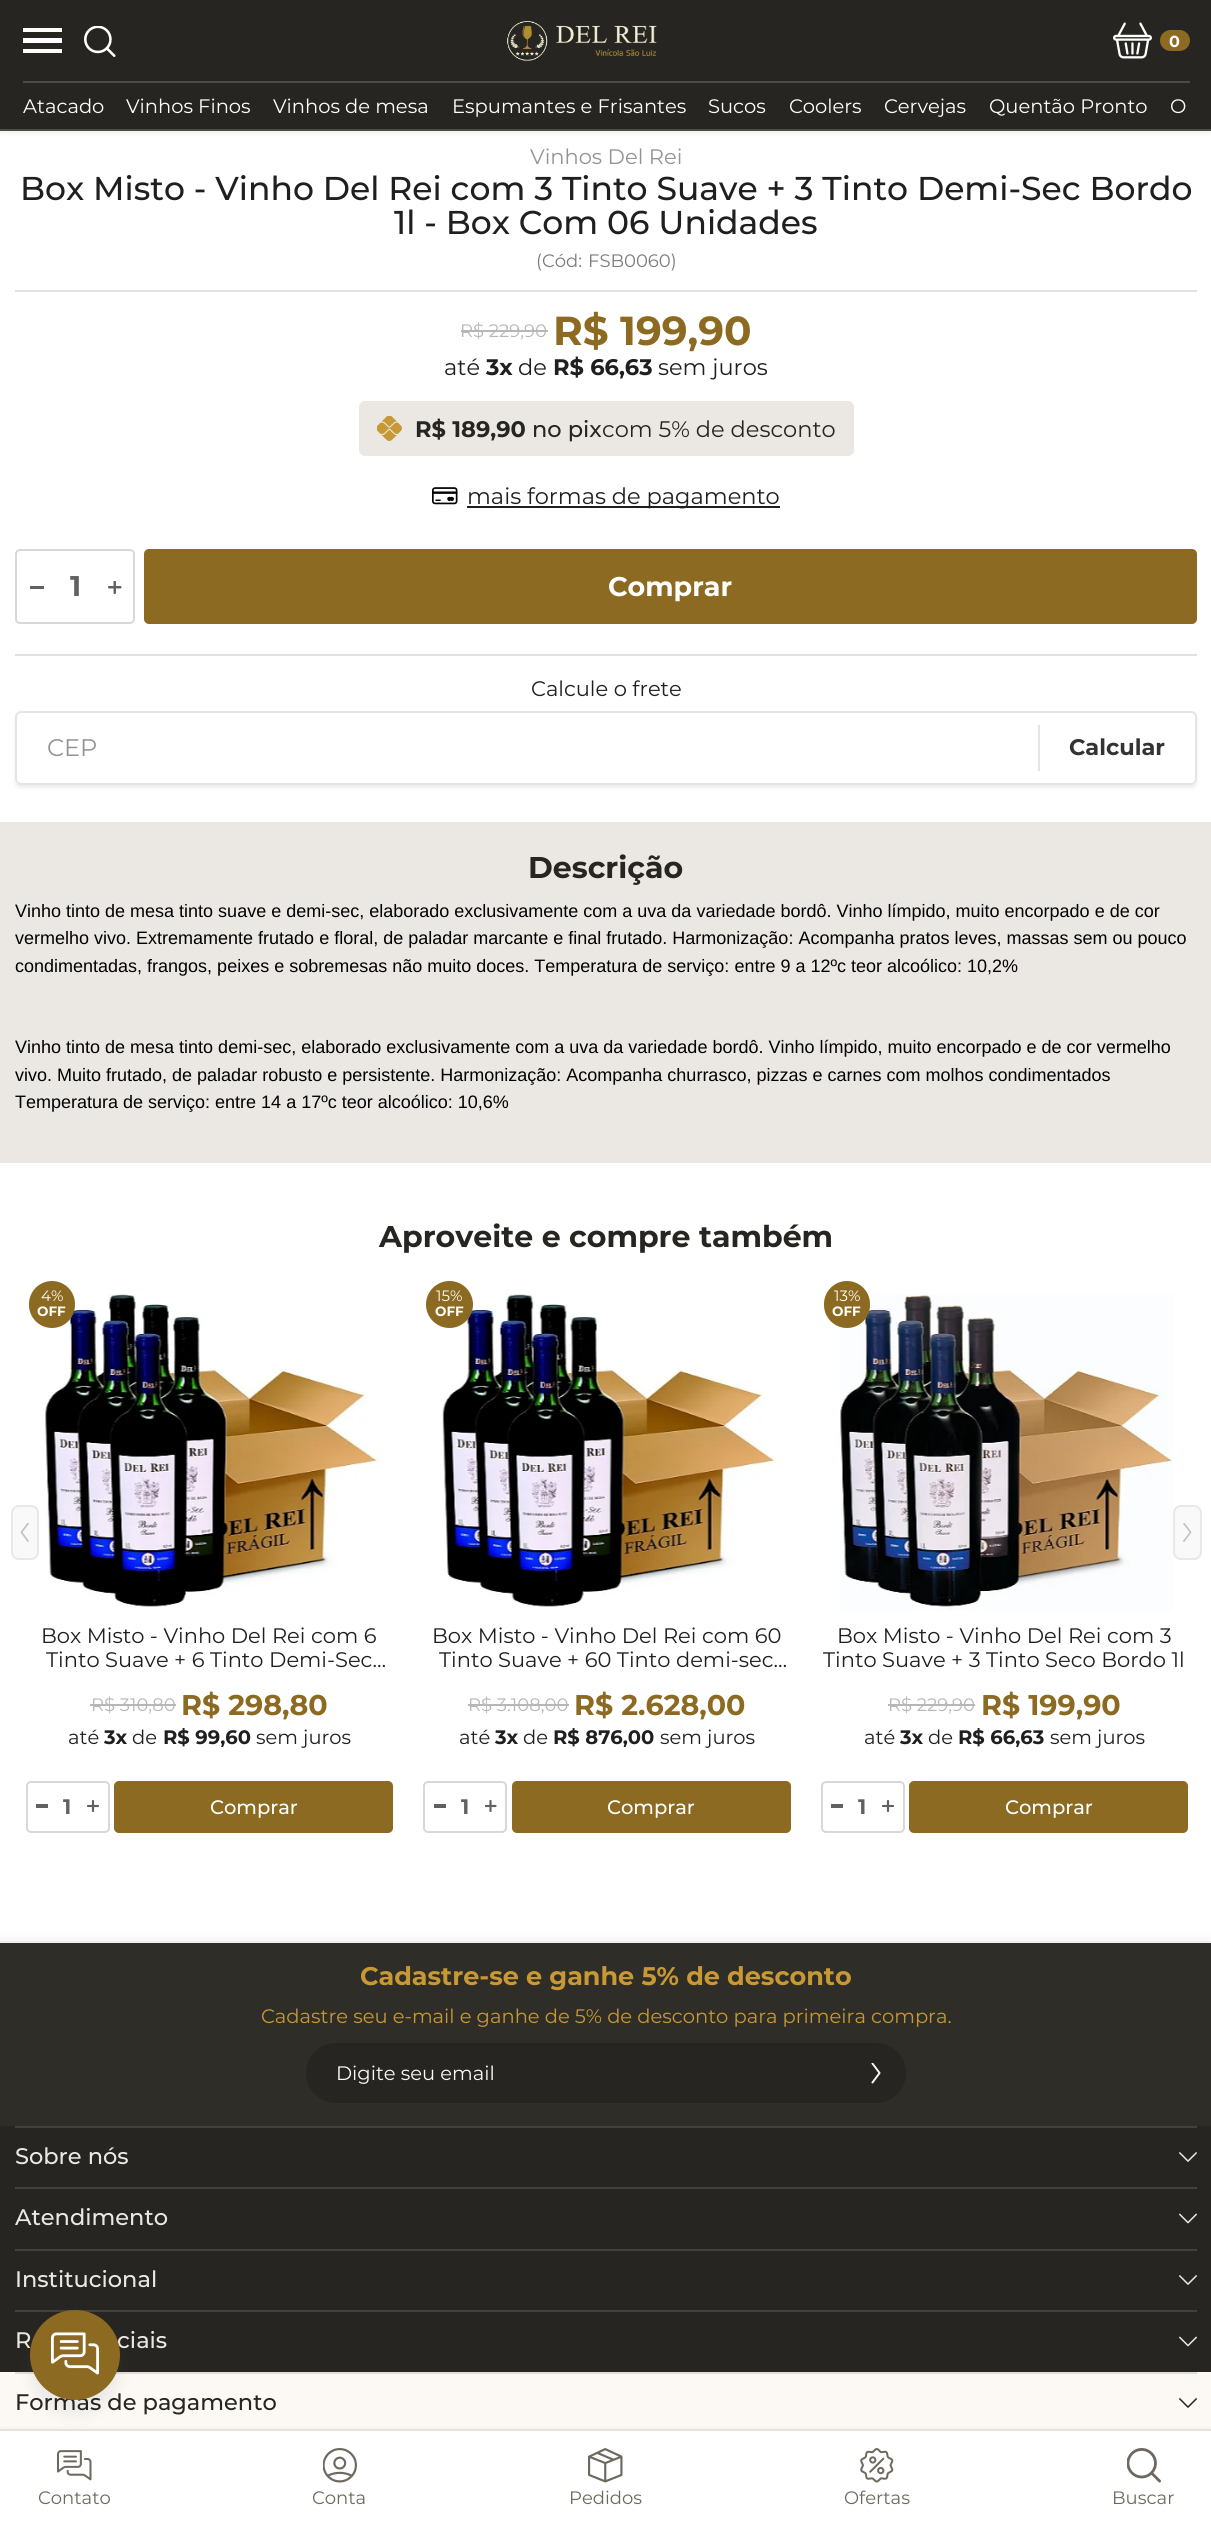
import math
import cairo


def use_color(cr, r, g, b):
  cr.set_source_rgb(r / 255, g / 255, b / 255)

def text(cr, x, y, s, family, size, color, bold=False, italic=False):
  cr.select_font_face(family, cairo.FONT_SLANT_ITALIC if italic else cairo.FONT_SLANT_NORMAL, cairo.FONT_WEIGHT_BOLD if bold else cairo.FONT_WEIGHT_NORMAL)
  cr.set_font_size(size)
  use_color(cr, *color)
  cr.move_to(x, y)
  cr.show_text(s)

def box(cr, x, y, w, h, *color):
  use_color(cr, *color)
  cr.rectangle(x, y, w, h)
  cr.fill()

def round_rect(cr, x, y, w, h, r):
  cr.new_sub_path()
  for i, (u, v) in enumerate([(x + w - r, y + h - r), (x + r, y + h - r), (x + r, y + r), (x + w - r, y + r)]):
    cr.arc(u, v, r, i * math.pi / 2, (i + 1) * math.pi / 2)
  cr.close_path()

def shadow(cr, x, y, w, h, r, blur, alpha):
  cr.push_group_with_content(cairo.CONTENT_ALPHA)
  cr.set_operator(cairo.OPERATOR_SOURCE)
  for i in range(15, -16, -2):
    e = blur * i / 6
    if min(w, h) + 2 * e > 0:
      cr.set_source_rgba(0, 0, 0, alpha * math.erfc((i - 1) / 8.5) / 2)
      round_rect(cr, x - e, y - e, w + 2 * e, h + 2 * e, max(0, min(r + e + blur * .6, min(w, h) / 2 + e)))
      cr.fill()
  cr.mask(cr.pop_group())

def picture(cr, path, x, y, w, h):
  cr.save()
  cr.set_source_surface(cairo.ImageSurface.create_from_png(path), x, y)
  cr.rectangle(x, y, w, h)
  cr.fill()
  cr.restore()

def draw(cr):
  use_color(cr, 255, 255, 255)
  cr.paint()
  use_color(cr, 82, 82, 82)
  shadow(cr, 0, 2, 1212, 130, 0, 3, 0.13)
  box(cr, 0, 0, 1211, 129, 38, 37, 33)
  box(cr, 0, 129, 1211, 2, 76, 75, 72)
  box(cr, 23, 49, 39, 4, 255, 255, 255)
  box(cr, 23, 38, 39, 5, 255, 255, 255)
  box(cr, 23, 28, 39, 4, 255, 255, 255)
  picture(cr, "img_01.png", 84, 26, 32, 31)
  picture(cr, "img_02.png", 507, 21, 150, 40)
  picture(cr, "img_03.png", 1113, 22, 39, 37)
  use_color(cr, 140, 106, 33)
  round_rect(cr, 1160, 30, 30, 21, 10.5)
  cr.fill()
  box(cr, 23, 81, 1167, 2, 76, 75, 72)
  box(cr, 15, 290, 1182, 2, 225, 225, 225)
  box(cr, 461, 330, 87, 2, 183, 183, 183)
  use_color(cr, 235, 232, 228)
  round_rect(cr, 359, 401, 495, 55, 6)
  cr.fill()
  picture(cr, "img_04.png", 377, 416, 25, 25)
  picture(cr, "img_05.png", 432, 487, 26, 18)
  box(cr, 467, 506, 313, 2, 32, 31, 31)
  round_rect(cr, 16, 550, 118, 73, 4)
  use_color(cr, 216, 216, 216)
  cr.stroke()
  box(cr, 30, 586, 14, 3, 97, 97, 97)
  picture(cr, "img_06.png", 108, 581, 14, 13)
  use_color(cr, 140, 106, 33)
  round_rect(cr, 144, 549, 1053, 75, 5)
  cr.fill()
  box(cr, 15, 654, 1182, 2, 225, 225, 225)
  cr.save()
  cr.set_fill_rule(cairo.FILL_RULE_EVEN_ODD)
  cr.new_path()
  cr.move_to(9, 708)
  cr.line_to(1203, 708)
  cr.line_to(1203, 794)
  cr.line_to(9, 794)
  cr.close_path()
  cr.move_to(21, 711)
  cr.line_to(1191, 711)
  cr.curve_to(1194.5, 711, 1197, 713.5, 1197, 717)
  cr.line_to(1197, 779)
  cr.curve_to(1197, 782.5, 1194.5, 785, 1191, 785)
  cr.line_to(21, 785)
  cr.curve_to(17.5, 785, 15, 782.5, 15, 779)
  cr.line_to(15, 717)
  cr.curve_to(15, 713.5, 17.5, 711, 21, 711)
  cr.close_path()
  cr.clip()
  use_color(cr, 205, 205, 205)
  shadow(cr, 15, 714, 1182, 74, 6, 1.5, 0.35)
  cr.restore()
  round_rect(cr, 16, 712, 1180, 72, 5)
  use_color(cr, 229, 229, 229)
  cr.stroke()
  use_color(cr, 255, 255, 255)
  round_rect(cr, 17, 713, 1021, 70, 5)
  cr.fill()
  box(cr, 1038, 725, 2, 46, 229, 229, 229)
  box(cr, 0, 822, 1211, 341, 235, 232, 228)
  use_color(cr, 249, 249, 249)
  round_rect(cr, 12, 1506, 26, 53, 7)
  cr.fill_preserve()
  use_color(cr, 232, 232, 232)
  cr.stroke()
  picture(cr, "img_07.png", 20, 1523, 9, 19)
  picture(cr, "img_08.png", 45, 1294, 334, 313)
  use_color(cr, 140, 106, 33)
  round_rect(cr, 29, 1281, 46, 47, 23)
  cr.fill()
  box(cr, 90, 1704, 86, 2, 183, 183, 183)
  round_rect(cr, 27, 1782, 82, 50, 4)
  use_color(cr, 216, 216, 216)
  cr.stroke()
  box(cr, 36, 1804, 12, 4, 97, 97, 97)
  picture(cr, "img_09.png", 87, 1800, 12, 12)
  use_color(cr, 140, 106, 33)
  round_rect(cr, 114, 1781, 279, 52, 5)
  cr.fill()
  picture(cr, "img_10.png", 442, 1294, 335, 313)
  cr.arc(449.5, 1304.5, 23.5, 0, 2 * math.pi)
  cr.fill()
  box(cr, 468, 1704, 101, 2, 183, 183, 183)
  round_rect(cr, 424, 1782, 82, 50, 4)
  use_color(cr, 216, 216, 216)
  cr.stroke()
  box(cr, 434, 1804, 12, 4, 97, 97, 97)
  picture(cr, "img_11.png", 485, 1800, 12, 12)
  use_color(cr, 140, 106, 33)
  round_rect(cr, 512, 1781, 279, 52, 5)
  cr.fill()
  picture(cr, "img_12.png", 840, 1294, 333, 317)
  round_rect(cr, 824, 1281, 46, 47, 23)
  cr.fill()
  box(cr, 888, 1704, 87, 2, 183, 183, 183)
  round_rect(cr, 822, 1782, 82, 50, 4)
  use_color(cr, 216, 216, 216)
  cr.stroke()
  box(cr, 831, 1804, 12, 4, 97, 97, 97)
  picture(cr, "img_09.png", 882, 1800, 12, 12)
  use_color(cr, 140, 106, 33)
  round_rect(cr, 909, 1781, 279, 52, 5)
  cr.fill()
  use_color(cr, 249, 249, 249)
  round_rect(cr, 1174, 1506, 27, 53, 7)
  cr.fill_preserve()
  use_color(cr, 232, 232, 232)
  cr.stroke()
  picture(cr, "img_13.png", 1183, 1523, 9, 19)
  use_color(cr, 196, 196, 196)
  shadow(cr, 0, 1938, 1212, 554, 0, 4.5, 0.18)
  box(cr, 0, 1941, 1211, 2, 239, 239, 239)
  box(cr, 0, 1943, 1211, 183, 46, 45, 40)
  use_color(cr, 38, 37, 33)
  round_rect(cr, 306, 2043, 600, 60, 30)
  cr.fill()
  picture(cr, "img_14.png", 871, 2063, 10, 21)
  box(cr, 0, 2126, 1211, 246, 38, 37, 33)
  box(cr, 15, 2126, 1182, 2, 66, 65, 62)
  picture(cr, "img_15.png", 1179, 2152, 18, 10)
  box(cr, 15, 2187, 1182, 2, 66, 65, 62)
  picture(cr, "img_16.png", 1179, 2213, 18, 11)
  box(cr, 15, 2249, 1182, 2, 66, 65, 62)
  picture(cr, "img_15.png", 1179, 2275, 18, 10)
  box(cr, 15, 2310, 1182, 2, 66, 65, 62)
  picture(cr, "img_16.png", 1179, 2336, 18, 11)
  box(cr, 0, 2372, 1211, 57, 252, 249, 245)
  box(cr, 15, 2372, 1182, 2, 224, 222, 219)
  picture(cr, "img_17.png", 1179, 2398, 18, 10)
  use_color(cr, 103, 103, 103)
  shadow(cr, 30, 2325, 90, 90, 45, 6, 0.1)
  use_color(cr, 82, 82, 82)
  shadow(cr, 0, 2429, 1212, 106, 0, 3, 0.08)
  box(cr, 0, 2431, 1211, 103, 255, 255, 255)
  box(cr, 0, 2429, 1211, 2, 226, 226, 226)
  picture(cr, "img_19.png", 57, 2450, 35, 31)
  picture(cr, "img_20.png", 323, 2448, 34, 35)
  picture(cr, "img_21.png", 588, 2448, 35, 35)
  picture(cr, "img_22.png", 860, 2448, 34, 35)
  picture(cr, "img_23.png", 1127, 2448, 34, 35)
  text(cr, 1169, 47, "0", "Montserrat", 16, (255, 255, 255), bold=True)
  text(cr, 23, 113, "Atacado", "Montserrat", 19.5, (255, 255, 255))
  text(cr, 126, 113, "Vinhos Finos", "Montserrat", 19.5, (255, 255, 255))
  text(cr, 273, 113, "Vinhos de mesa", "Montserrat", 19.5, (255, 255, 255))
  text(cr, 452, 113, "Espumantes e Frisantes", "Montserrat", 19.5, (255, 255, 255))
  text(cr, 708, 113, "Sucos", "Montserrat", 19.5, (255, 255, 255))
  text(cr, 789, 113, "Coolers", "Montserrat", 19.5, (255, 255, 255))
  text(cr, 884, 113, "Cervejas", "Montserrat", 19.5, (255, 255, 255))
  text(cr, 989, 113, "Quentão Pronto", "Montserrat", 19.5, (255, 255, 255))
  text(cr, 1170, 113, "O", "Montserrat", 19.5, (255, 255, 255))
  text(cr, 530, 164, "Vinhos Del Rei", "Montserrat", 21, (148, 148, 148))
  text(cr, 20, 200, "Box Misto - Vinho Del Rei com 3 Tinto Suave + 3 Tinto Demi-Sec Bordo", "Montserrat Medium", 33, (32, 31, 31))
  text(cr, 394, 234, "1l - Box Com 06 Unidades", "Montserrat Medium", 33, (32, 31, 31))
  text(cr, 536, 267, "(Cód:", "Montserrat", 18, (123, 123, 123))
  text(cr, 588, 267, "FSB0060)", "Montserrat", 18, (123, 123, 123))
  text(cr, 460, 337, "R$ 229,90", "Montserrat", 18, (183, 183, 183))
  text(cr, 553, 345, "R$ 199,90", "Montserrat", 40.5, (140, 106, 33), bold=True)
  text(cr, 444, 375, "até", "Montserrat", 22.5, (32, 31, 31))
  text(cr, 486, 375, "3x", "Montserrat", 22.5, (32, 31, 31), bold=True)
  text(cr, 518, 375, "de", "Montserrat", 22.5, (32, 31, 31))
  text(cr, 553, 375, "R$ 66,63", "Montserrat", 22.5, (32, 31, 31), bold=True)
  text(cr, 658, 375, "sem juros", "Montserrat", 22.5, (32, 31, 31))
  text(cr, 415, 437, "R$ 189,90", "Montserrat", 22.5, (38, 37, 33), bold=True)
  text(cr, 532, 437, "no pix", "Montserrat Medium", 22.5, (38, 37, 33))
  text(cr, 602, 437, "com 5% de desconto", "Montserrat", 22.5, (38, 37, 33))
  text(cr, 467, 504, "mais formas de pagamento", "Montserrat", 22.5, (32, 31, 31))
  text(cr, 70, 596, "1", "Montserrat", 28.5, (97, 97, 97), bold=True)
  text(cr, 608, 596, "Comprar", "Montserrat", 27, (255, 255, 255), bold=True)
  text(cr, 531, 696, "Calcule o frete", "Montserrat", 21, (32, 31, 31))
  text(cr, 47, 756, "CEP", "Montserrat", 24, (148, 148, 148))
  text(cr, 1069, 755, "Calcular", "Montserrat", 22.5, (51, 51, 51), bold=True)
  text(cr, 528, 878, "Descrição", "Montserrat", 30, (38, 37, 33), bold=True)
  text(cr, 15, 917, "Vinho tinto de mesa tinto suave e demi-sec, elaborado exclusivamente com a uva da variedade bordô. Vinho límpido, muito encorpado e de cor", "Liberation Sans", 18, (0, 0, 0))
  text(cr, 15, 944, "vermelho vivo. Extremamente frutado e floral, de paladar marcante e final frutado. Harmonização: Acompanha pratos leves, massas sem ou pouco", "Liberation Sans", 18, (0, 0, 0))
  text(cr, 15, 972, "condimentadas, frangos, peixes e sobremesas não muito doces. Temperatura de serviço: entre 9 a 12ºc teor alcoólico: 10,2%", "Liberation Sans", 18, (0, 0, 0))
  text(cr, 15, 1053, "Vinho tinto de mesa tinto demi-sec, elaborado exclusivamente com a uva da variedade bordô. Vinho límpido, muito encorpado e de cor vermelho", "Liberation Sans", 18, (0, 0, 0))
  text(cr, 15, 1081, "vivo. Muito frutado, de paladar robusto e persistente. Harmonização: Acompanha churrasco, pizzas e carnes com molhos condimentados", "Liberation Sans", 18, (0, 0, 0))
  text(cr, 15, 1108, "Temperatura de serviço: entre 14 a 17ºc teor alcoólico: 10,6%", "Liberation Sans", 18, (0, 0, 0))
  text(cr, 379, 1247, "Aproveite e compre também", "Montserrat", 30, (38, 37, 33), bold=True)
  text(cr, 41, 1301, "4%", "Montserrat", 15, (255, 255, 255))
  text(cr, 37, 1316, "OFF", "Montserrat", 13.5, (255, 255, 255), bold=True)
  text(cr, 41, 1643, "Box Misto - Vinho Del Rei com 6", "Montserrat", 21, (32, 31, 31))
  text(cr, 46, 1667, "Tinto Suave + 6 Tinto Demi-Sec…", "Montserrat", 21, (32, 31, 31))
  text(cr, 91, 1711, "R$ 310,80", "Montserrat", 18, (183, 183, 183))
  text(cr, 181, 1715, "R$ 298,80", "Montserrat", 28.5, (140, 106, 33), bold=True)
  text(cr, 68, 1744, "até", "Montserrat", 19.5, (32, 31, 31))
  text(cr, 104, 1744, "3x", "Montserrat", 19.5, (32, 31, 31), bold=True)
  text(cr, 132, 1744, "de", "Montserrat", 19.5, (32, 31, 31))
  text(cr, 163, 1744, "R$ 99,60", "Montserrat", 19.5, (32, 31, 31), bold=True)
  text(cr, 256, 1744, "sem juros", "Montserrat", 19.5, (32, 31, 31))
  text(cr, 63, 1814, "1", "Montserrat", 21, (97, 97, 97), bold=True)
  text(cr, 210, 1814, "Comprar", "Montserrat Medium", 19.5, (255, 255, 255))
  text(cr, 436, 1301, "15%", "Montserrat", 15, (255, 255, 255))
  text(cr, 435, 1316, "OFF", "Montserrat", 13.5, (255, 255, 255), bold=True)
  text(cr, 432, 1643, "Box Misto - Vinho Del Rei com 60", "Montserrat", 21, (32, 31, 31))
  text(cr, 439, 1667, "Tinto Suave + 60 Tinto demi-sec…", "Montserrat", 21, (32, 31, 31))
  text(cr, 468, 1711, "R$ 3.108,00", "Montserrat", 18, (183, 183, 183))
  text(cr, 574, 1715, "R$ 2.628,00", "Montserrat", 28.5, (140, 106, 33), bold=True)
  text(cr, 459, 1744, "até", "Montserrat", 19.5, (32, 31, 31))
  text(cr, 495, 1744, "3x", "Montserrat", 19.5, (32, 31, 31), bold=True)
  text(cr, 523, 1744, "de", "Montserrat", 19.5, (32, 31, 31))
  text(cr, 553, 1744, "R$ 876,00", "Montserrat", 19.5, (32, 31, 31), bold=True)
  text(cr, 660, 1744, "sem juros", "Montserrat", 19.5, (32, 31, 31))
  text(cr, 461, 1814, "1", "Montserrat", 21, (97, 97, 97), bold=True)
  text(cr, 607, 1814, "Comprar", "Montserrat Medium", 19.5, (255, 255, 255))
  text(cr, 834, 1301, "13%", "Montserrat", 15, (255, 255, 255))
  text(cr, 832, 1316, "OFF", "Montserrat", 13.5, (255, 255, 255), bold=True)
  text(cr, 837, 1643, "Box Misto - Vinho Del Rei com 3", "Montserrat", 21, (32, 31, 31))
  text(cr, 823, 1667, "Tinto Suave + 3 Tinto Seco Bordo 1l", "Montserrat", 21, (32, 31, 31))
  text(cr, 888, 1711, "R$ 229,90", "Montserrat", 18, (183, 183, 183))
  text(cr, 981, 1715, "R$ 199,90", "Montserrat", 28.5, (140, 106, 33), bold=True)
  text(cr, 864, 1744, "até", "Montserrat", 19.5, (32, 31, 31))
  text(cr, 900, 1744, "3x", "Montserrat", 19.5, (32, 31, 31), bold=True)
  text(cr, 928, 1744, "de", "Montserrat", 19.5, (32, 31, 31))
  text(cr, 958, 1744, "R$ 66,63", "Montserrat", 19.5, (32, 31, 31), bold=True)
  text(cr, 1050, 1744, "sem juros", "Montserrat", 19.5, (32, 31, 31))
  text(cr, 858, 1814, "1", "Montserrat", 21, (97, 97, 97), bold=True)
  text(cr, 1005, 1814, "Comprar", "Montserrat Medium", 19.5, (255, 255, 255))
  text(cr, 360, 1985, "Cadastre-se e ganhe 5% de desconto", "Montserrat", 25.5, (199, 152, 52), bold=True)
  text(cr, 261, 2023, "Cadastre seu e-mail e ganhe de 5% de desconto para primeira compra.", "Montserrat", 19.5, (199, 152, 52))
  text(cr, 336, 2080, "Digite seu email", "Montserrat", 19.5, (252, 249, 245))
  text(cr, 15, 2164, "Sobre nós", "Montserrat Medium", 22.5, (235, 232, 228))
  text(cr, 15, 2225, "Atendimento", "Montserrat Medium", 22.5, (235, 232, 228))
  text(cr, 15, 2287, "Institucional", "Montserrat Medium", 22.5, (235, 232, 228))
  text(cr, 15, 2348, "R", "Montserrat Medium", 22.5, (235, 232, 228))
  text(cr, 117, 2348, "ciais", "Montserrat Medium", 22.5, (235, 232, 228))
  text(cr, 15, 2410, "Formas de pagamento", "Montserrat Medium", 22.5, (38, 37, 33))
  use_color(cr, 140, 106, 33)
  cr.new_path()
  cr.arc(75, 2355, 45, 0, 2 * math.pi)
  cr.fill()
  picture(cr, "img_18.png", 51, 2332, 48, 43)
  text(cr, 38, 2504, "Contato", "Montserrat", 18, (109, 105, 94))
  text(cr, 312, 2504, "Conta", "Montserrat", 18, (109, 105, 94))
  text(cr, 569, 2504, "Pedidos", "Montserrat", 18, (109, 105, 94))
  text(cr, 844, 2504, "Ofertas", "Montserrat", 18, (109, 105, 94))
  text(cr, 1112, 2504, "Buscar", "Montserrat", 18, (109, 105, 94))


surface = cairo.ImageSurface(cairo.FORMAT_RGB24, 1211, 2534)
cr = cairo.Context(surface)
options = cairo.FontOptions()
options.set_hint_metrics(cairo.HINT_METRICS_OFF)
options.set_hint_style(cairo.HINT_STYLE_NONE)
cr.set_font_options(options)
cr.set_miter_limit(4)
draw(cr)
surface.write_to_png("out.png")
